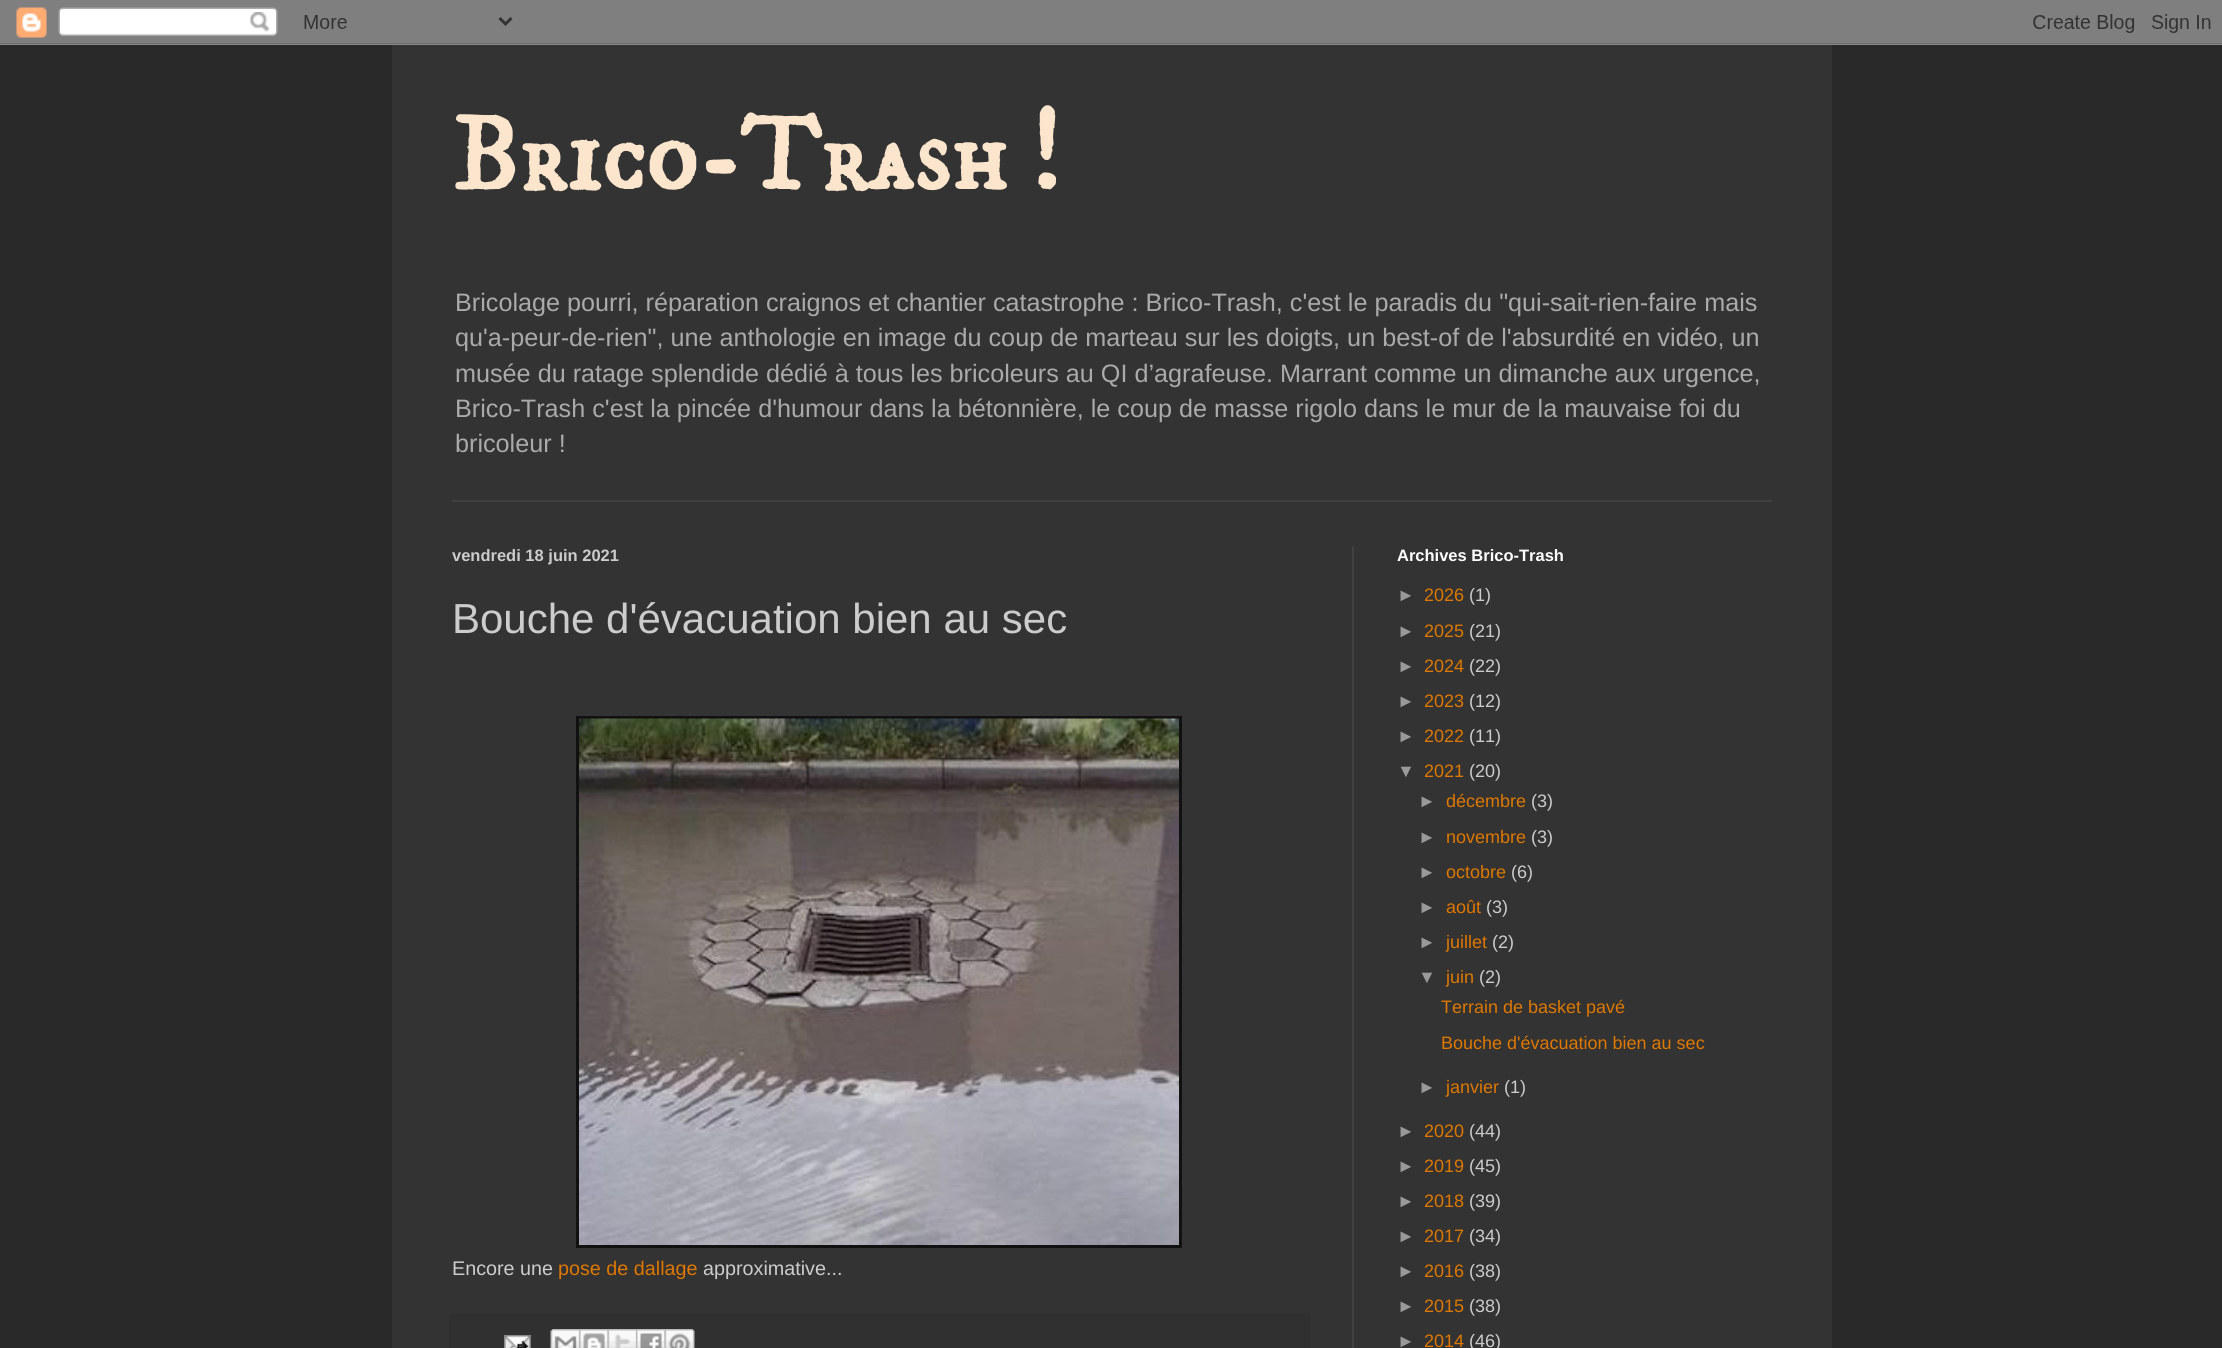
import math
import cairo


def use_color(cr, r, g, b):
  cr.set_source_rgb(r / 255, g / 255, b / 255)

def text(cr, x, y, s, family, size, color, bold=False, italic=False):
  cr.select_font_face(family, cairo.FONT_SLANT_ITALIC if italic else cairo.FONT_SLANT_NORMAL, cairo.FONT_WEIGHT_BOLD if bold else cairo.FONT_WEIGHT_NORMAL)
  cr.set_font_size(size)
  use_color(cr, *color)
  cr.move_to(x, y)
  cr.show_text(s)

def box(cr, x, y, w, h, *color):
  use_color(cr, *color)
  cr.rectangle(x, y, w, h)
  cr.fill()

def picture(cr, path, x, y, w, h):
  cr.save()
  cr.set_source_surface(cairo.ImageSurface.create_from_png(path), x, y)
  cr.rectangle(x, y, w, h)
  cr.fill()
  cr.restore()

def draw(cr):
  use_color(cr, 41, 41, 41)
  cr.paint()
  picture(cr, "img_01.png", 0, 0, 2222, 45)
  box(cr, 392, 45, 1440, 1303, 51, 51, 51)
  box(cr, 452, 500, 1320, 2, 64, 64, 64)
  box(cr, 1352, 546, 2, 802, 64, 64, 64)
  box(cr, 576, 716, 606, 532, 17, 17, 17)
  picture(cr, "img_02.png", 579, 718, 600, 527)
  box(cr, 449, 1314, 861, 34, 48, 48, 48)
  picture(cr, "img_03.png", 504, 1335, 27, 13)
  picture(cr, "img_04.png", 550, 1329, 29, 19)
  picture(cr, "img_05.png", 579, 1329, 29, 19)
  picture(cr, "img_06.png", 607, 1329, 29, 19)
  picture(cr, "img_07.png", 636, 1329, 29, 19)
  picture(cr, "img_08.png", 664, 1329, 31, 19)
  text(cr, 452, 189, "Brico-Trash !", "IM FELL DW Pica SC", 105, (252, 229, 205), bold=True)
  text(cr, 455, 311, "Bricolage pourri, réparation craignos et chantier catastrophe : Brico-Trash, c'est le paradis du \"qui-sait-rien-faire mais", "Liberation Sans", 25.2, (170, 170, 170))
  text(cr, 455, 346, "qu'a-peur-de-rien\", une anthologie en image du coup de marteau sur les doigts, un best-of de l'absurdité en vidéo, un", "Liberation Sans", 25.2, (170, 170, 170))
  text(cr, 455, 382, "musée du ratage splendide dédié à tous les bricoleurs au QI d’agrafeuse. Marrant comme un dimanche aux urgence,", "Liberation Sans", 25.2, (170, 170, 170))
  text(cr, 455, 417, "Brico-Trash c'est la pincée d'humour dans la bétonnière, le coup de masse rigolo dans le mur de la mauvaise foi du", "Liberation Sans", 25.2, (170, 170, 170))
  text(cr, 455, 452, "bricoleur !", "Liberation Sans", 25.2, (170, 170, 170))
  text(cr, 452, 561, "vendredi 18 juin 2021", "Liberation Sans", 16.5, (204, 204, 204), bold=True)
  text(cr, 452, 633, "Bouche d'évacuation bien au sec", "Liberation Sans", 42, (204, 204, 204))
  text(cr, 452, 1275, "Encore une", "Liberation Sans", 19.75, (204, 204, 204))
  text(cr, 558, 1275, "pose de dallage", "Liberation Sans", 19.75, (221, 119, 0))
  text(cr, 703, 1275, "approximative...", "Liberation Sans", 19.75, (204, 204, 204))
  text(cr, 1397, 561, "Archives Brico-Trash", "Liberation Sans", 16.5, (255, 255, 255), bold=True)
  text(cr, 1397, 601, "►", "Liberation Sans", 18, (153, 153, 153))
  text(cr, 1424, 601, "2026", "Liberation Sans", 18, (221, 119, 0))
  text(cr, 1469, 601, "(1)", "Liberation Sans", 18, (204, 204, 204))
  text(cr, 1397, 637, "►", "Liberation Sans", 18, (153, 153, 153))
  text(cr, 1424, 637, "2025", "Liberation Sans", 18, (221, 119, 0))
  text(cr, 1469, 637, "(21)", "Liberation Sans", 18, (204, 204, 204))
  text(cr, 1397, 672, "►", "Liberation Sans", 18, (153, 153, 153))
  text(cr, 1424, 672, "2024", "Liberation Sans", 18, (221, 119, 0))
  text(cr, 1469, 672, "(22)", "Liberation Sans", 18, (204, 204, 204))
  text(cr, 1397, 707, "►", "Liberation Sans", 18, (153, 153, 153))
  text(cr, 1424, 707, "2023", "Liberation Sans", 18, (221, 119, 0))
  text(cr, 1469, 707, "(12)", "Liberation Sans", 18, (204, 204, 204))
  text(cr, 1397, 742, "►", "Liberation Sans", 18, (153, 153, 153))
  text(cr, 1424, 742, "2022", "Liberation Sans", 18, (221, 119, 0))
  text(cr, 1469, 742, "(11)", "Liberation Sans", 18, (204, 204, 204))
  text(cr, 1397, 777, "▼", "Liberation Sans", 18, (153, 153, 153))
  text(cr, 1424, 777, "2021", "Liberation Sans", 18, (221, 119, 0))
  text(cr, 1469, 777, "(20)", "Liberation Sans", 18, (204, 204, 204))
  text(cr, 1418, 807, "►", "Liberation Sans", 18, (153, 153, 153))
  text(cr, 1446, 807, "décembre", "Liberation Sans", 18, (221, 119, 0))
  text(cr, 1531, 807, "(3)", "Liberation Sans", 18, (204, 204, 204))
  text(cr, 1418, 843, "►", "Liberation Sans", 18, (153, 153, 153))
  text(cr, 1446, 843, "novembre", "Liberation Sans", 18, (221, 119, 0))
  text(cr, 1531, 843, "(3)", "Liberation Sans", 18, (204, 204, 204))
  text(cr, 1418, 878, "►", "Liberation Sans", 18, (153, 153, 153))
  text(cr, 1446, 878, "octobre", "Liberation Sans", 18, (221, 119, 0))
  text(cr, 1511, 878, "(6)", "Liberation Sans", 18, (204, 204, 204))
  text(cr, 1418, 913, "►", "Liberation Sans", 18, (153, 153, 153))
  text(cr, 1446, 913, "août", "Liberation Sans", 18, (221, 119, 0))
  text(cr, 1486, 913, "(3)", "Liberation Sans", 18, (204, 204, 204))
  text(cr, 1418, 948, "►", "Liberation Sans", 18, (153, 153, 153))
  text(cr, 1446, 948, "juillet", "Liberation Sans", 18, (221, 119, 0))
  text(cr, 1492, 948, "(2)", "Liberation Sans", 18, (204, 204, 204))
  text(cr, 1418, 983, "▼", "Liberation Sans", 18, (153, 153, 153))
  text(cr, 1446, 983, "juin", "Liberation Sans", 18, (221, 119, 0))
  text(cr, 1479, 983, "(2)", "Liberation Sans", 18, (204, 204, 204))
  text(cr, 1441, 1013, "Terrain de basket pavé", "Liberation Sans", 18, (221, 119, 0))
  text(cr, 1441, 1049, "Bouche d'évacuation bien au sec", "Liberation Sans", 18, (221, 119, 0))
  text(cr, 1418, 1093, "►", "Liberation Sans", 18, (153, 153, 153))
  text(cr, 1446, 1093, "janvier", "Liberation Sans", 18, (221, 119, 0))
  text(cr, 1504, 1093, "(1)", "Liberation Sans", 18, (204, 204, 204))
  text(cr, 1397, 1137, "►", "Liberation Sans", 18, (153, 153, 153))
  text(cr, 1424, 1137, "2020", "Liberation Sans", 18, (221, 119, 0))
  text(cr, 1469, 1137, "(44)", "Liberation Sans", 18, (204, 204, 204))
  text(cr, 1397, 1172, "►", "Liberation Sans", 18, (153, 153, 153))
  text(cr, 1424, 1172, "2019", "Liberation Sans", 18, (221, 119, 0))
  text(cr, 1469, 1172, "(45)", "Liberation Sans", 18, (204, 204, 204))
  text(cr, 1397, 1207, "►", "Liberation Sans", 18, (153, 153, 153))
  text(cr, 1424, 1207, "2018", "Liberation Sans", 18, (221, 119, 0))
  text(cr, 1469, 1207, "(39)", "Liberation Sans", 18, (204, 204, 204))
  text(cr, 1397, 1242, "►", "Liberation Sans", 18, (153, 153, 153))
  text(cr, 1424, 1242, "2017", "Liberation Sans", 18, (221, 119, 0))
  text(cr, 1469, 1242, "(34)", "Liberation Sans", 18, (204, 204, 204))
  text(cr, 1397, 1277, "►", "Liberation Sans", 18, (153, 153, 153))
  text(cr, 1424, 1277, "2016", "Liberation Sans", 18, (221, 119, 0))
  text(cr, 1469, 1277, "(38)", "Liberation Sans", 18, (204, 204, 204))
  text(cr, 1397, 1312, "►", "Liberation Sans", 18, (153, 153, 153))
  text(cr, 1424, 1312, "2015", "Liberation Sans", 18, (221, 119, 0))
  text(cr, 1469, 1312, "(38)", "Liberation Sans", 18, (204, 204, 204))
  text(cr, 1397, 1347, "►", "Liberation Sans", 18, (153, 153, 153))
  text(cr, 1424, 1347, "2014", "Liberation Sans", 18, (221, 119, 0))
  text(cr, 1469, 1347, "(46)", "Liberation Sans", 18, (204, 204, 204))


surface = cairo.ImageSurface(cairo.FORMAT_RGB24, 2222, 1348)
cr = cairo.Context(surface)
options = cairo.FontOptions()
options.set_hint_metrics(cairo.HINT_METRICS_OFF)
options.set_hint_style(cairo.HINT_STYLE_NONE)
cr.set_font_options(options)
cr.set_miter_limit(4)
draw(cr)
surface.write_to_png("out.png")
